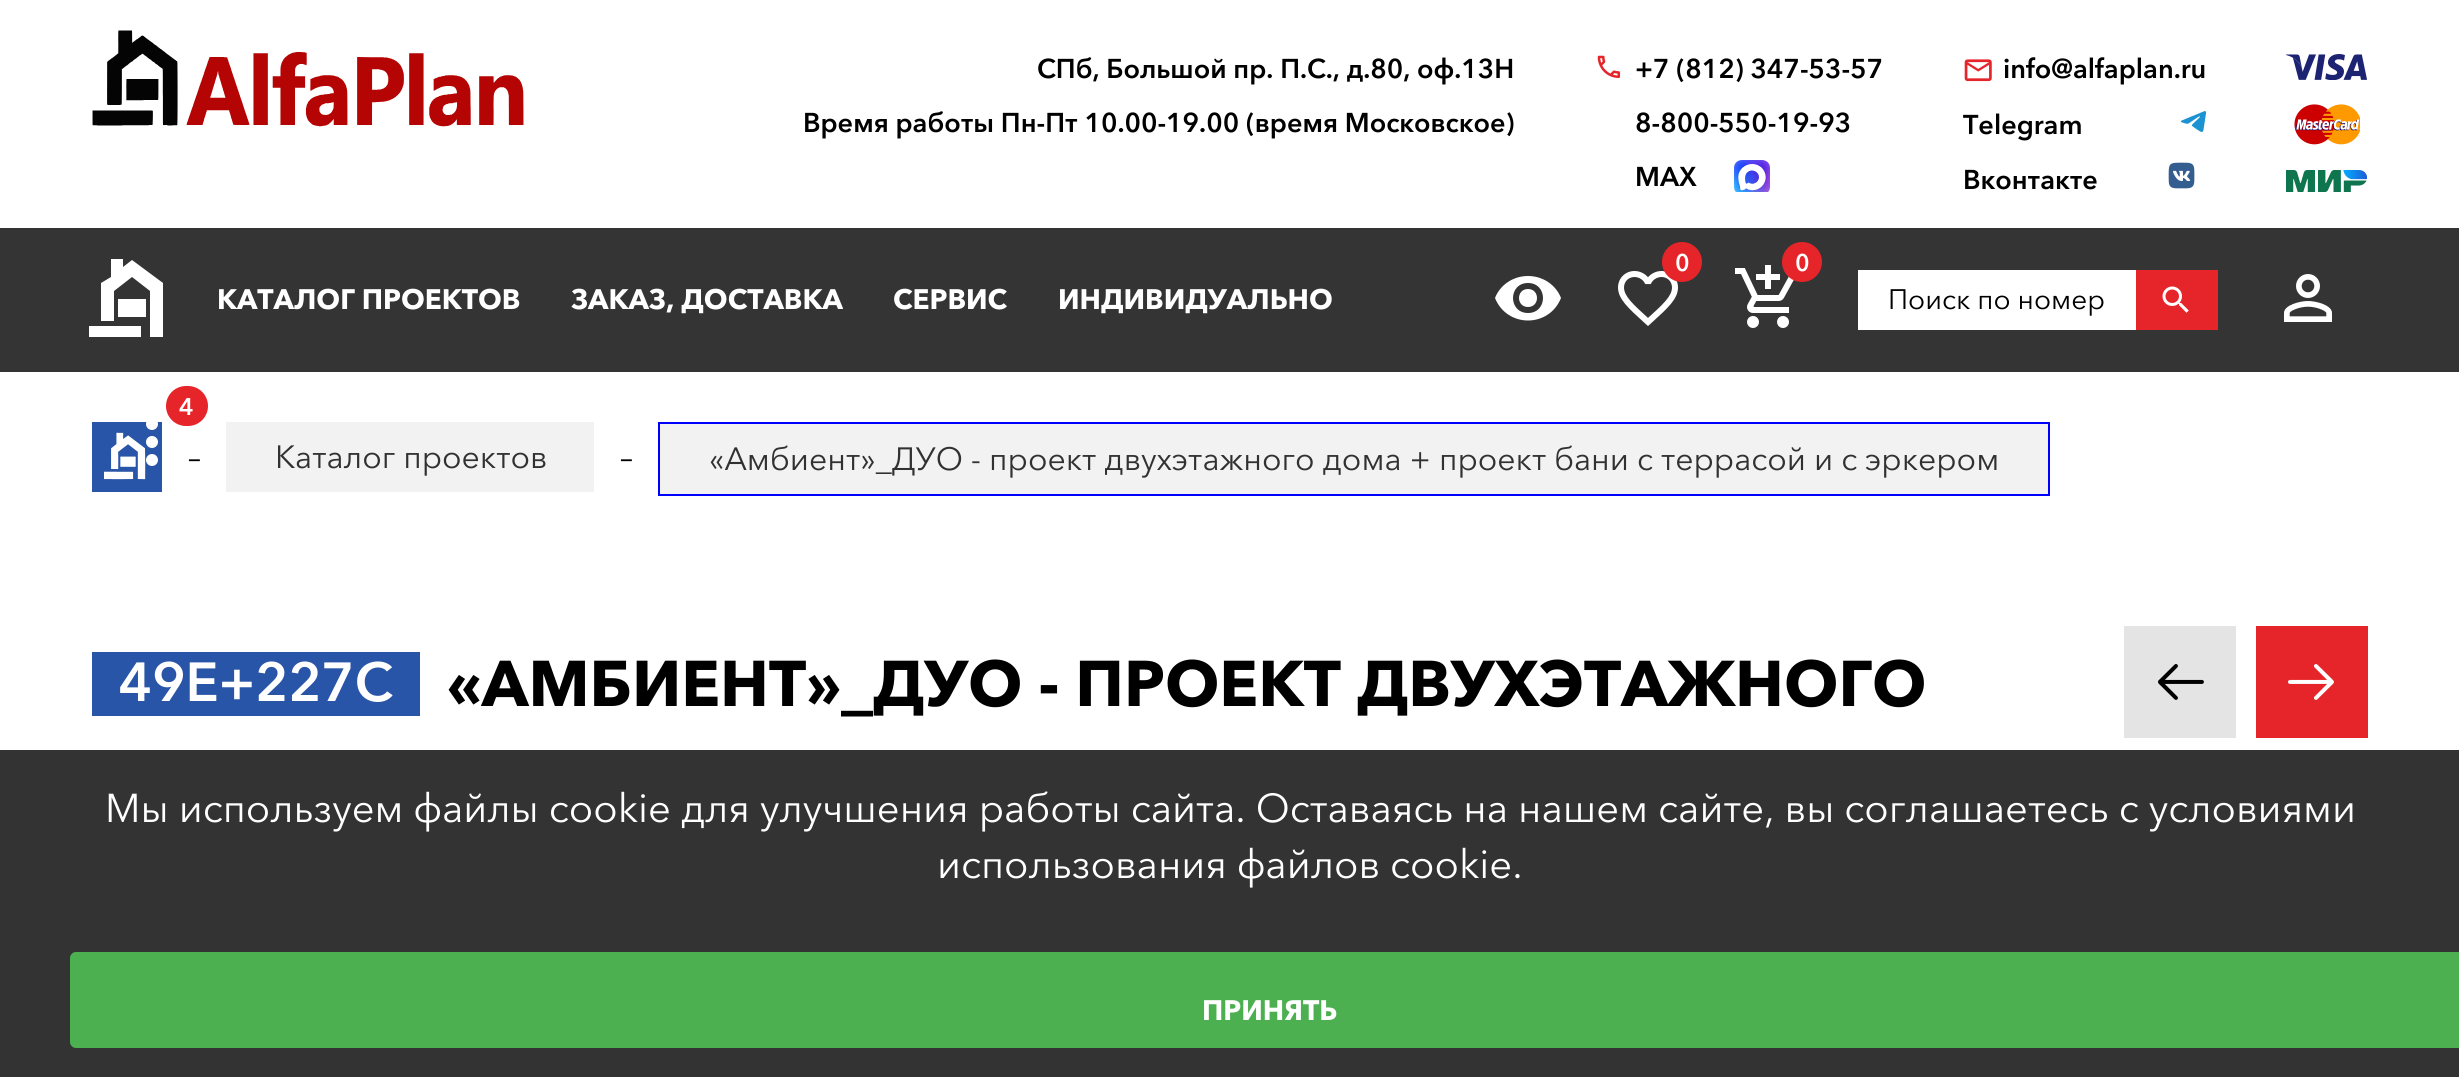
import math
import cairo


def use_color(cr, r, g, b):
  cr.set_source_rgb(r / 255, g / 255, b / 255)

def text(cr, x, y, s, family, size, color, bold=False, italic=False):
  cr.select_font_face(family, cairo.FONT_SLANT_ITALIC if italic else cairo.FONT_SLANT_NORMAL, cairo.FONT_WEIGHT_BOLD if bold else cairo.FONT_WEIGHT_NORMAL)
  cr.set_font_size(size)
  use_color(cr, *color)
  cr.move_to(x, y)
  cr.show_text(s)

def spaced_text(cr, x, y, s, letter, word):
  cr.move_to(x, y)
  for ch in s:
    cr.show_text(ch)
    cr.rel_move_to(letter + word * (ch == ' '), 0)

def box(cr, x, y, w, h, *color):
  use_color(cr, *color)
  cr.rectangle(x, y, w, h)
  cr.fill()

def round_rect(cr, x, y, w, h, r):
  cr.new_sub_path()
  for i, (u, v) in enumerate([(x + w - r, y + h - r), (x + r, y + h - r), (x + r, y + r), (x + w - r, y + r)]):
    cr.arc(u, v, r, i * math.pi / 2, (i + 1) * math.pi / 2)
  cr.close_path()

def picture(cr, path, x, y, w, h):
  cr.save()
  cr.set_source_surface(cairo.ImageSurface.create_from_png(path), x, y)
  cr.rectangle(x, y, w, h)
  cr.fill()
  cr.restore()

def draw(cr):
  use_color(cr, 255, 255, 255)
  cr.paint()
  picture(cr, "img_01.png", 92, 30, 432, 97)
  picture(cr, "img_02.png", 1597, 55, 24, 23)
  picture(cr, "img_03.png", 1734, 160, 36, 32)
  picture(cr, "img_04.png", 1964, 59, 28, 23)
  picture(cr, "img_05.png", 2180, 111, 26, 21)
  picture(cr, "img_06.png", 2168, 162, 27, 27)
  picture(cr, "img_07.png", 2286, 54, 81, 26)
  picture(cr, "img_08.png", 2294, 104, 66, 41)
  picture(cr, "img_09.png", 2286, 170, 82, 22)
  box(cr, 0, 228, 2459, 144, 52, 52, 52)
  use_color(cr, 255, 255, 255)
  cr.new_path()
  cr.move_to(111, 277)
  cr.line_to(111, 259)
  cr.line_to(123, 259)
  cr.line_to(123, 267)
  cr.line_to(132, 260)
  cr.line_to(163, 283)
  cr.line_to(163, 337)
  cr.line_to(150, 337)
  cr.line_to(150, 291)
  cr.line_to(132, 277)
  cr.line_to(114, 291)
  cr.line_to(114, 321)
  cr.line_to(101, 321)
  cr.line_to(101, 283)
  cr.close_path()
  cr.fill()
  box(cr, 118, 299, 28, 18, 255, 255, 255)
  box(cr, 89, 326, 52, 11, 255, 255, 255)
  box(cr, 92, 422, 70, 70, 40, 85, 168)
  picture(cr, "img_10.png", 146, 422, 12, 44)
  use_color(cr, 230, 37, 42)
  round_rect(cr, 166, 386, 42, 40, 20)
  cr.fill()
  picture(cr, "img_11.png", 1618, 271, 60, 55)
  cr.arc(1682, 262, 20, 0, 2 * math.pi)
  cr.fill()
  picture(cr, "img_12.png", 1735, 265, 59, 63)
  cr.arc(1802, 262, 20, 0, 2 * math.pi)
  cr.fill()
  use_color(cr, 255, 255, 255)
  cr.new_path()
  cr.move_to(1528, 276)
  cr.curve_to(1513, 276, 1500, 285, 1495, 298)
  cr.curve_to(1507, 328, 1549, 328, 1561, 298)
  cr.curve_to(1556, 285, 1543, 276, 1528, 276)
  cr.close_path()
  cr.move_to(1528, 313)
  cr.curve_to(1508, 313, 1508, 283, 1528, 283)
  cr.curve_to(1548, 283, 1548, 313, 1528, 313)
  cr.close_path()
  cr.move_to(1528, 289)
  cr.curve_to(1516, 289, 1516, 307, 1528, 307)
  cr.curve_to(1540, 307, 1540, 289, 1528, 289)
  cr.close_path()
  cr.fill()
  box(cr, 1858, 270, 278, 60, 255, 255, 255)
  box(cr, 2136, 270, 82, 60, 230, 37, 42)
  picture(cr, "img_13.png", 2162, 286, 27, 27)
  picture(cr, "img_14.png", 2284, 274, 48, 48)
  picture(cr, "img_15.png", 104, 432, 42, 48)
  box(cr, 226, 422, 368, 70, 242, 242, 242)
  cr.rectangle(659, 423, 1390, 72)
  cr.fill_preserve()
  use_color(cr, 0, 0, 255)
  cr.stroke()
  box(cr, 92, 652, 328, 64, 40, 85, 168)
  box(cr, 2124, 626, 112, 112, 228, 228, 228)
  picture(cr, "img_16.png", 2158, 664, 46, 36)
  box(cr, 2256, 626, 112, 112, 230, 37, 42)
  picture(cr, "img_17.png", 2288, 664, 46, 36)
  box(cr, 0, 750, 2459, 327, 51, 51, 51)
  use_color(cr, 76, 175, 80)
  round_rect(cr, 70, 952, 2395, 96, 6)
  cr.fill()
  text(cr, 1037, 78, "СПб, Большой пр. П.С., д.80, оф.13Н", "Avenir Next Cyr", 27.05, (0, 0, 0), bold=True)
  text(cr, 803, 132, "Время работы Пн-Пт 10.00-19.00 (время Московское)", "Avenir Next Cyr", 27.05, (0, 0, 0), bold=True)
  text(cr, 1635, 78, "+7 (812) 347-53-57", "Avenir Next Cyr", 27.05, (0, 0, 0), bold=True)
  text(cr, 1635, 132, "8-800-550-19-93", "Avenir Next Cyr", 27.05, (0, 0, 0), bold=True)
  text(cr, 1635, 186, "MAX", "Avenir Next Cyr", 27.05, (0, 0, 0), bold=True)
  text(cr, 2003, 78, "info@alfaplan.ru", "Avenir Next Cyr", 27.05, (0, 0, 0), bold=True)
  text(cr, 1963, 134, "Telegram", "Avenir Next Cyr", 27.05, (0, 0, 0), bold=True)
  text(cr, 1963, 189, "Вконтакте", "Avenir Next Cyr", 27.05, (0, 0, 0), bold=True)
  text(cr, 217, 309, "КАТАЛОГ ПРОЕКТОВ", "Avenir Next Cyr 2", 28, (255, 255, 255), bold=True)
  text(cr, 571, 309, "ЗАКАЗ, ДОСТАВКА", "Avenir Next Cyr 2", 28, (255, 255, 255), bold=True)
  text(cr, 893, 309, "СЕРВИС", "Avenir Next Cyr 2", 28, (255, 255, 255), bold=True)
  text(cr, 1058, 309, "ИНДИВИДУАЛЬНО", "Avenir Next Cyr 2", 28, (255, 255, 255), bold=True)
  cr.select_font_face("Avenir Next Cyr", cairo.FONT_SLANT_NORMAL, cairo.FONT_WEIGHT_BOLD)
  cr.set_font_size(24)
  spaced_text(cr, 179, 415, "4", -2, 0)
  spaced_text(cr, 1675, 271, "0", -2, 0)
  spaced_text(cr, 1795, 271, "0", -2, 0)
  text(cr, 1888, 309, "Поиск по номер", "Avenir Next Cyr", 28, (0, 0, 0))
  text(cr, 188, 468, "–", "Avenir Next Cyr", 32, (0, 0, 0))
  text(cr, 275, 468, "Каталог проектов", "Avenir Next Cyr", 32, (49, 49, 49))
  text(cr, 620, 468, "–", "Avenir Next Cyr", 32, (0, 0, 0))
  text(cr, 709, 470, "«Амбиент»_ДУО - проект двухэтажного дома + проект бани с террасой и с эркером", "Avenir Next Cyr", 32, (49, 49, 49))
  text(cr, 119, 701, "49E+227C", "Avenir Next Cyr", 54.5, (255, 255, 255), bold=True)
  text(cr, 447, 706, "«АМБИЕНТ»_ДУО - ПРОЕКТ ДВУХЭТАЖНОГО", "Avenir Next Cyr 2", 64, (0, 0, 0), bold=True)
  text(cr, 105, 822, "Мы используем файлы cookie для улучшения работы сайта. Оставаясь на нашем сайте, вы соглашаетесь с условиями", "Avenir Next Cyr", 40, (255, 255, 255))
  text(cr, 937, 878, "использования файлов cookie.", "Avenir Next Cyr", 40, (255, 255, 255))
  text(cr, 1202, 1020, "ПРИНЯТЬ", "Avenir Next Cyr 2", 28, (255, 255, 255), bold=True)


surface = cairo.ImageSurface(cairo.FORMAT_RGB24, 2459, 1077)
cr = cairo.Context(surface)
options = cairo.FontOptions()
options.set_hint_metrics(cairo.HINT_METRICS_OFF)
options.set_hint_style(cairo.HINT_STYLE_NONE)
cr.set_font_options(options)
cr.set_miter_limit(4)
draw(cr)
surface.write_to_png("out.png")
